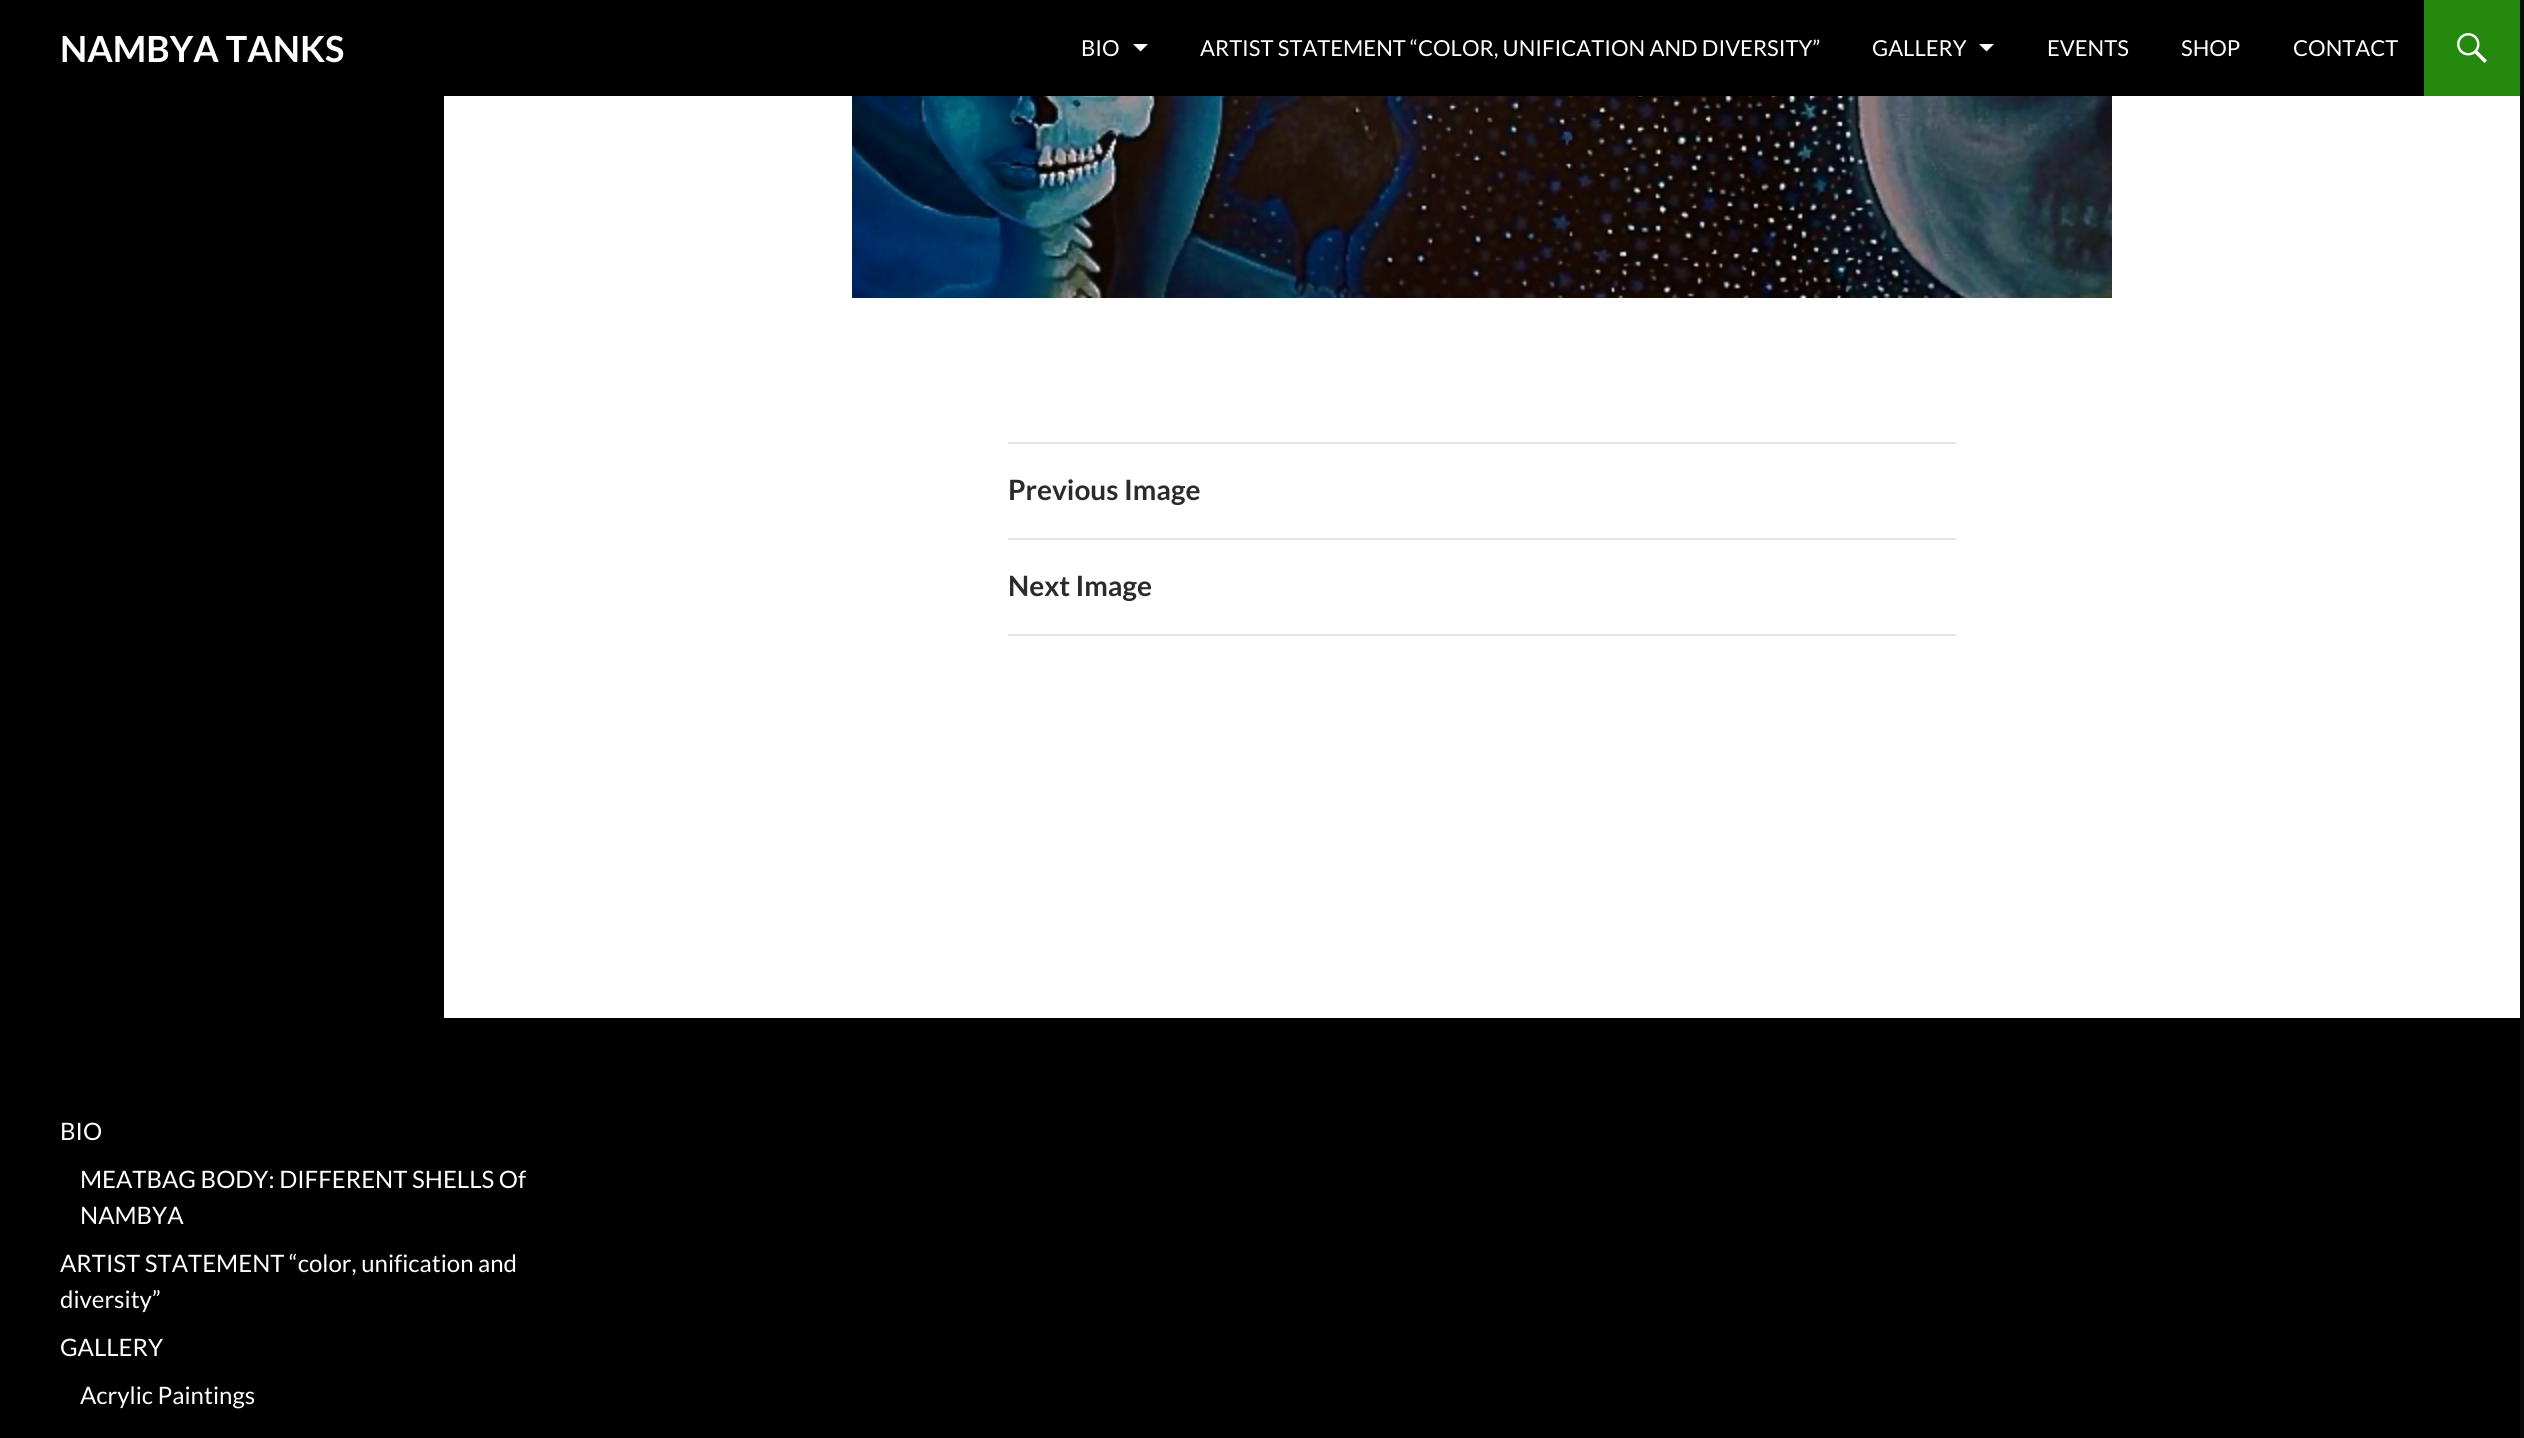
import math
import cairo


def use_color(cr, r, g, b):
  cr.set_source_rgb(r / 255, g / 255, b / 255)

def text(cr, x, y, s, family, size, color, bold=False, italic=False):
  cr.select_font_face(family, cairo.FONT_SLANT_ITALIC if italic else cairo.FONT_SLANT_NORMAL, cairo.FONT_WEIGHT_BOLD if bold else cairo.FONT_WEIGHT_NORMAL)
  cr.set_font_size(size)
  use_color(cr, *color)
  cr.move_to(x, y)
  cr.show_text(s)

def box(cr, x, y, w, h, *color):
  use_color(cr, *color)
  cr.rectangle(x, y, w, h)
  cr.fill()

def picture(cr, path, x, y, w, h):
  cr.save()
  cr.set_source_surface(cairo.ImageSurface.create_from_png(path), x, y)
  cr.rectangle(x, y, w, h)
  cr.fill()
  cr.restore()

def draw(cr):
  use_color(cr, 10, 10, 10)
  cr.paint()
  box(cr, 444, 96, 2076, 922, 255, 255, 255)
  box(cr, 0, 0, 2424, 96, 0, 0, 0)
  use_color(cr, 255, 255, 255)
  cr.new_path()
  cr.move_to(1133, 44)
  cr.line_to(1140.5, 51.5)
  cr.line_to(1148, 44)
  cr.close_path()
  cr.fill()
  cr.new_path()
  cr.move_to(1979, 44)
  cr.line_to(1986.5, 51.5)
  cr.line_to(1994, 44)
  cr.close_path()
  cr.fill()
  box(cr, 2424, 0, 96, 96, 36, 137, 13)
  picture(cr, "img_01.png", 2457, 33, 30, 30)
  box(cr, 0, 96, 444, 922, 0, 0, 0)
  picture(cr, "img_02.png", 852, 96, 1260, 202)
  box(cr, 1008, 442, 948, 2, 230, 230, 230)
  box(cr, 1008, 538, 948, 2, 230, 230, 230)
  box(cr, 1008, 634, 948, 2, 230, 230, 230)
  box(cr, 0, 1018, 2520, 420, 0, 0, 0)
  text(cr, 60, 62, "NAMBYA TANKS", "Lato", 36, (255, 255, 255), bold=True)
  text(cr, 1081, 56, "BIO", "Lato", 22, (255, 255, 255))
  text(cr, 1200, 56, "ARTIST STATEMENT “COLOR, UNIFICATION AND DIVERSITY”", "Lato", 22, (255, 255, 255))
  text(cr, 1872, 56, "GALLERY", "Lato", 22, (255, 255, 255))
  text(cr, 2047, 56, "EVENTS", "Lato", 22, (255, 255, 255))
  text(cr, 2181, 56, "SHOP", "Lato", 22, (255, 255, 255))
  text(cr, 2293, 56, "CONTACT", "Lato", 22, (255, 255, 255))
  text(cr, 1008, 500, "Previous Image", "Lato", 28, (43, 43, 43), bold=True)
  text(cr, 1008, 596, "Next Image", "Lato", 28, (43, 43, 43), bold=True)
  text(cr, 60, 1140, "BIO", "Lato", 24, (255, 255, 255))
  text(cr, 80, 1188, "MEATBAG BODY: DIFFERENT SHELLS Of", "Lato", 24, (255, 255, 255))
  text(cr, 80, 1224, "NAMBYA", "Lato", 24, (255, 255, 255))
  text(cr, 60, 1272, "ARTIST STATEMENT “color, unification and", "Lato", 24, (255, 255, 255))
  text(cr, 60, 1308, "diversity”", "Lato", 24, (255, 255, 255))
  text(cr, 60, 1356, "GALLERY", "Lato", 24, (255, 255, 255))
  text(cr, 80, 1404, "Acrylic Paintings", "Lato", 24, (255, 255, 255))


surface = cairo.ImageSurface(cairo.FORMAT_RGB24, 2524, 1438)
cr = cairo.Context(surface)
options = cairo.FontOptions()
options.set_hint_metrics(cairo.HINT_METRICS_OFF)
options.set_hint_style(cairo.HINT_STYLE_NONE)
cr.set_font_options(options)
cr.set_miter_limit(4)
draw(cr)
surface.write_to_png("out.png")
